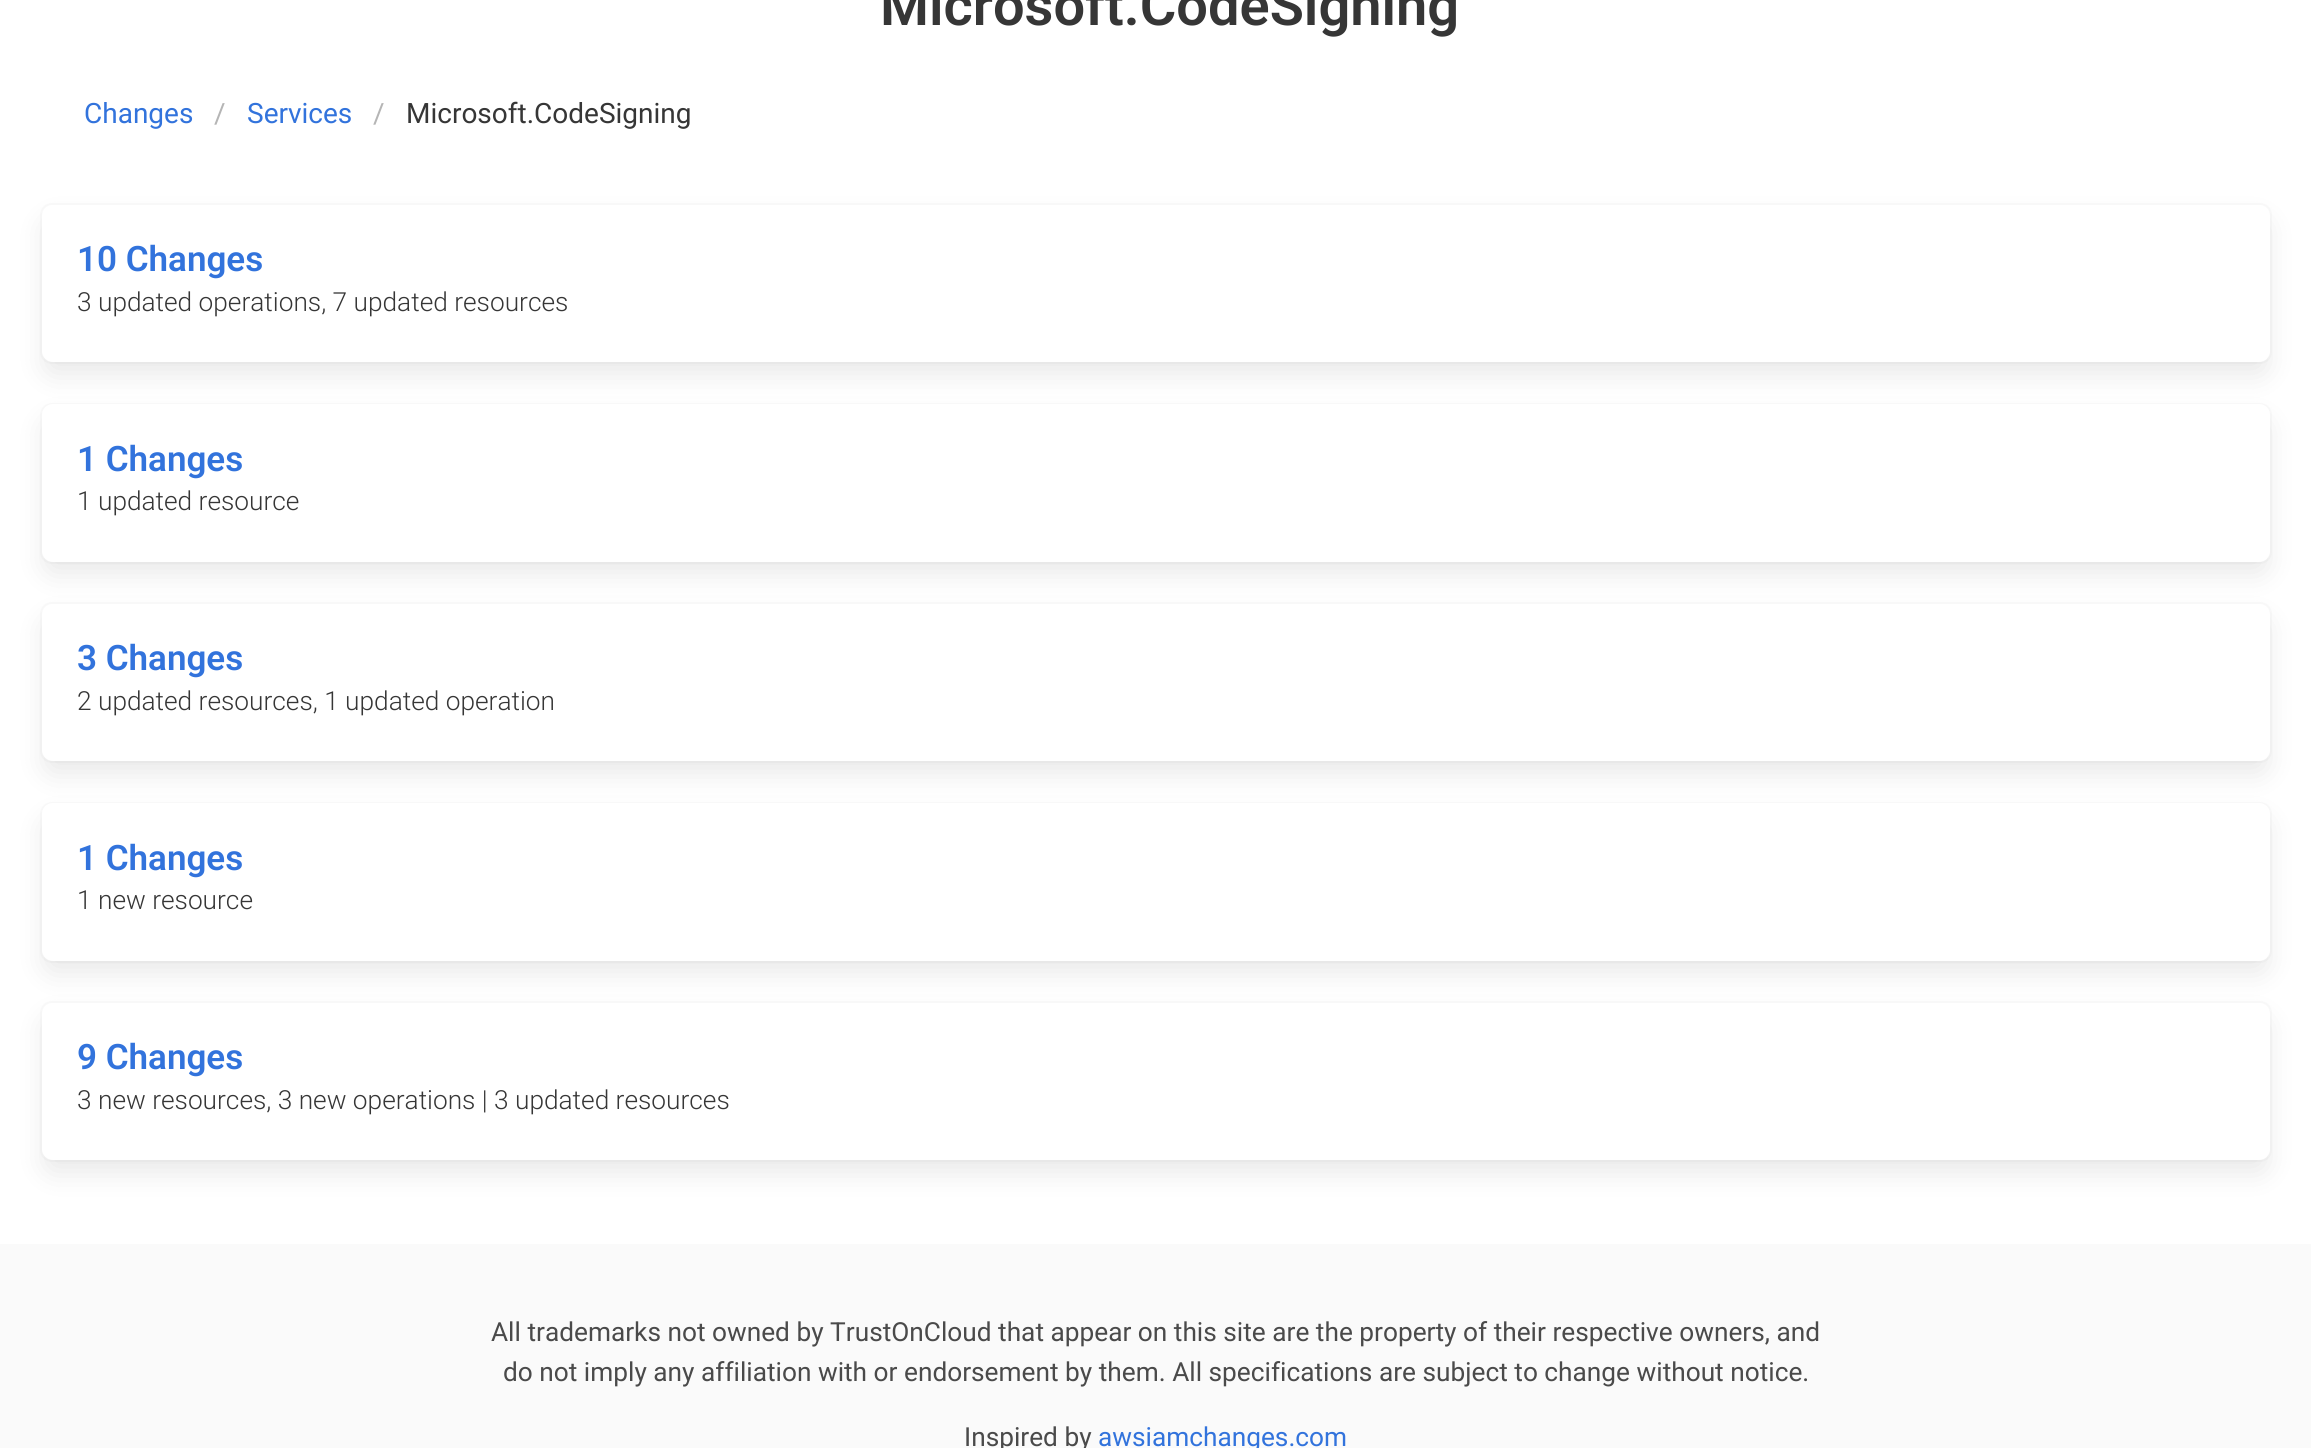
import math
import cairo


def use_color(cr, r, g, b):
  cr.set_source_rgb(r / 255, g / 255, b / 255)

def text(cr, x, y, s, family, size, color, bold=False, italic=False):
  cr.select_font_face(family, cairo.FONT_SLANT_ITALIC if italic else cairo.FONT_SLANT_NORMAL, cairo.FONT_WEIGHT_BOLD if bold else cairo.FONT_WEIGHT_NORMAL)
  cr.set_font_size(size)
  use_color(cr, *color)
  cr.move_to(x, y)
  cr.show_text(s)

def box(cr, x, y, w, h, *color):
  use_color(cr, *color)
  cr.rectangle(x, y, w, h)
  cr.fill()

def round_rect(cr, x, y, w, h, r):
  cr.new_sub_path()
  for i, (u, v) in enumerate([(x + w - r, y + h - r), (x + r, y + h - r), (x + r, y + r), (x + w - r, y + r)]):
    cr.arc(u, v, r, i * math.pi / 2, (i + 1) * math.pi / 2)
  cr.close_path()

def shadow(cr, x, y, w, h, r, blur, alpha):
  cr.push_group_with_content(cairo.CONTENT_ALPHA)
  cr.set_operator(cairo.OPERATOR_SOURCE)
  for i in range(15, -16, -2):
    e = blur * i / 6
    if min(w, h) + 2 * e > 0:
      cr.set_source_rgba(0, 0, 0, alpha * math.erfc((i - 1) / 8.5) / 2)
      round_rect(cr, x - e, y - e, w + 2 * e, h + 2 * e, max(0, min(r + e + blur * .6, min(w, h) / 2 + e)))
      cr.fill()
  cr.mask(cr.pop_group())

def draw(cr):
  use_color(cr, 255, 255, 255)
  cr.paint()
  round_rect(cr, 41, 204, 2230, 159, 11)
  use_color(cr, 250, 250, 250)
  cr.stroke()
  use_color(cr, 10, 10, 10)
  shadow(cr, 46, 222, 2220, 151, 7, 14, 0.1)
  use_color(cr, 255, 255, 255)
  round_rect(cr, 42, 205, 2228, 157, 11)
  cr.fill()
  round_rect(cr, 41, 404, 2230, 159, 11)
  use_color(cr, 250, 250, 250)
  cr.stroke()
  use_color(cr, 10, 10, 10)
  shadow(cr, 46, 422, 2220, 150, 7, 14, 0.1)
  use_color(cr, 255, 255, 255)
  round_rect(cr, 42, 404, 2228, 158, 11)
  cr.fill()
  round_rect(cr, 41, 603, 2230, 159, 11)
  use_color(cr, 250, 250, 250)
  cr.stroke()
  use_color(cr, 10, 10, 10)
  shadow(cr, 46, 621, 2220, 151, 7, 14, 0.1)
  use_color(cr, 255, 255, 255)
  round_rect(cr, 42, 604, 2228, 157, 11)
  cr.fill()
  round_rect(cr, 41, 803, 2230, 159, 11)
  use_color(cr, 250, 250, 250)
  cr.stroke()
  use_color(cr, 10, 10, 10)
  shadow(cr, 46, 821, 2220, 150, 7, 14, 0.1)
  use_color(cr, 255, 255, 255)
  round_rect(cr, 42, 803, 2228, 158, 11)
  cr.fill()
  round_rect(cr, 41, 1002, 2230, 159, 11)
  use_color(cr, 250, 250, 250)
  cr.stroke()
  use_color(cr, 10, 10, 10)
  shadow(cr, 46, 1020, 2220, 151, 7, 14, 0.1)
  use_color(cr, 255, 255, 255)
  round_rect(cr, 42, 1003, 2228, 157, 11)
  cr.fill()
  box(cr, 0, 1244, 2311, 204, 250, 250, 250)
  text(cr, 880, 25, "Microsoft.CodeSigning", "Roboto SemiBold", 56, (54, 54, 54))
  text(cr, 84, 123, "Changes", "Roboto", 28, (50, 115, 220))
  text(cr, 214, 123, "/", "Roboto", 28, (181, 181, 181))
  text(cr, 247, 123, "Services", "Roboto", 28, (50, 115, 220))
  text(cr, 373, 123, "/", "Roboto", 28, (181, 181, 181))
  text(cr, 406, 123, "Microsoft.CodeSigning", "Roboto", 28, (54, 54, 54))
  text(cr, 77, 271, "10 Changes", "Roboto SemiBold", 35, (50, 115, 220))
  text(cr, 77, 311, "3 updated operations, 7 updated resources", "Roboto Light", 26.25, (54, 54, 54))
  text(cr, 77, 471, "1 Changes", "Roboto SemiBold", 35, (50, 115, 220))
  text(cr, 77, 510, "1 updated resource", "Roboto Light", 26.25, (54, 54, 54))
  text(cr, 77, 670, "3 Changes", "Roboto SemiBold", 35, (50, 115, 220))
  text(cr, 77, 710, "2 updated resources, 1 updated operation", "Roboto Light", 26.25, (54, 54, 54))
  text(cr, 77, 870, "1 Changes", "Roboto SemiBold", 35, (50, 115, 220))
  text(cr, 77, 909, "1 new resource", "Roboto Light", 26.25, (54, 54, 54))
  text(cr, 77, 1069, "9 Changes", "Roboto SemiBold", 35, (50, 115, 220))
  text(cr, 77, 1109, "3 new resources, 3 new operations | 3 updated resources", "Roboto Light", 26.25, (54, 54, 54))
  text(cr, 491, 1341, "All trademarks not owned by TrustOnCloud that appear on this site are the property of their respective owners, and", "Roboto", 26.25, (74, 74, 74))
  text(cr, 503, 1381, "do not imply any affiliation with or endorsement by them. All specifications are subject to change without notice.", "Roboto", 26.25, (74, 74, 74))
  text(cr, 964, 1446, "Inspired by", "Roboto", 26.25, (74, 74, 74))
  text(cr, 1098, 1446, "awsiamchanges.com", "Roboto", 26.25, (50, 115, 220))


surface = cairo.ImageSurface(cairo.FORMAT_RGB24, 2311, 1448)
cr = cairo.Context(surface)
options = cairo.FontOptions()
options.set_hint_metrics(cairo.HINT_METRICS_OFF)
options.set_hint_style(cairo.HINT_STYLE_NONE)
cr.set_font_options(options)
cr.set_miter_limit(4)
draw(cr)
surface.write_to_png("out.png")
